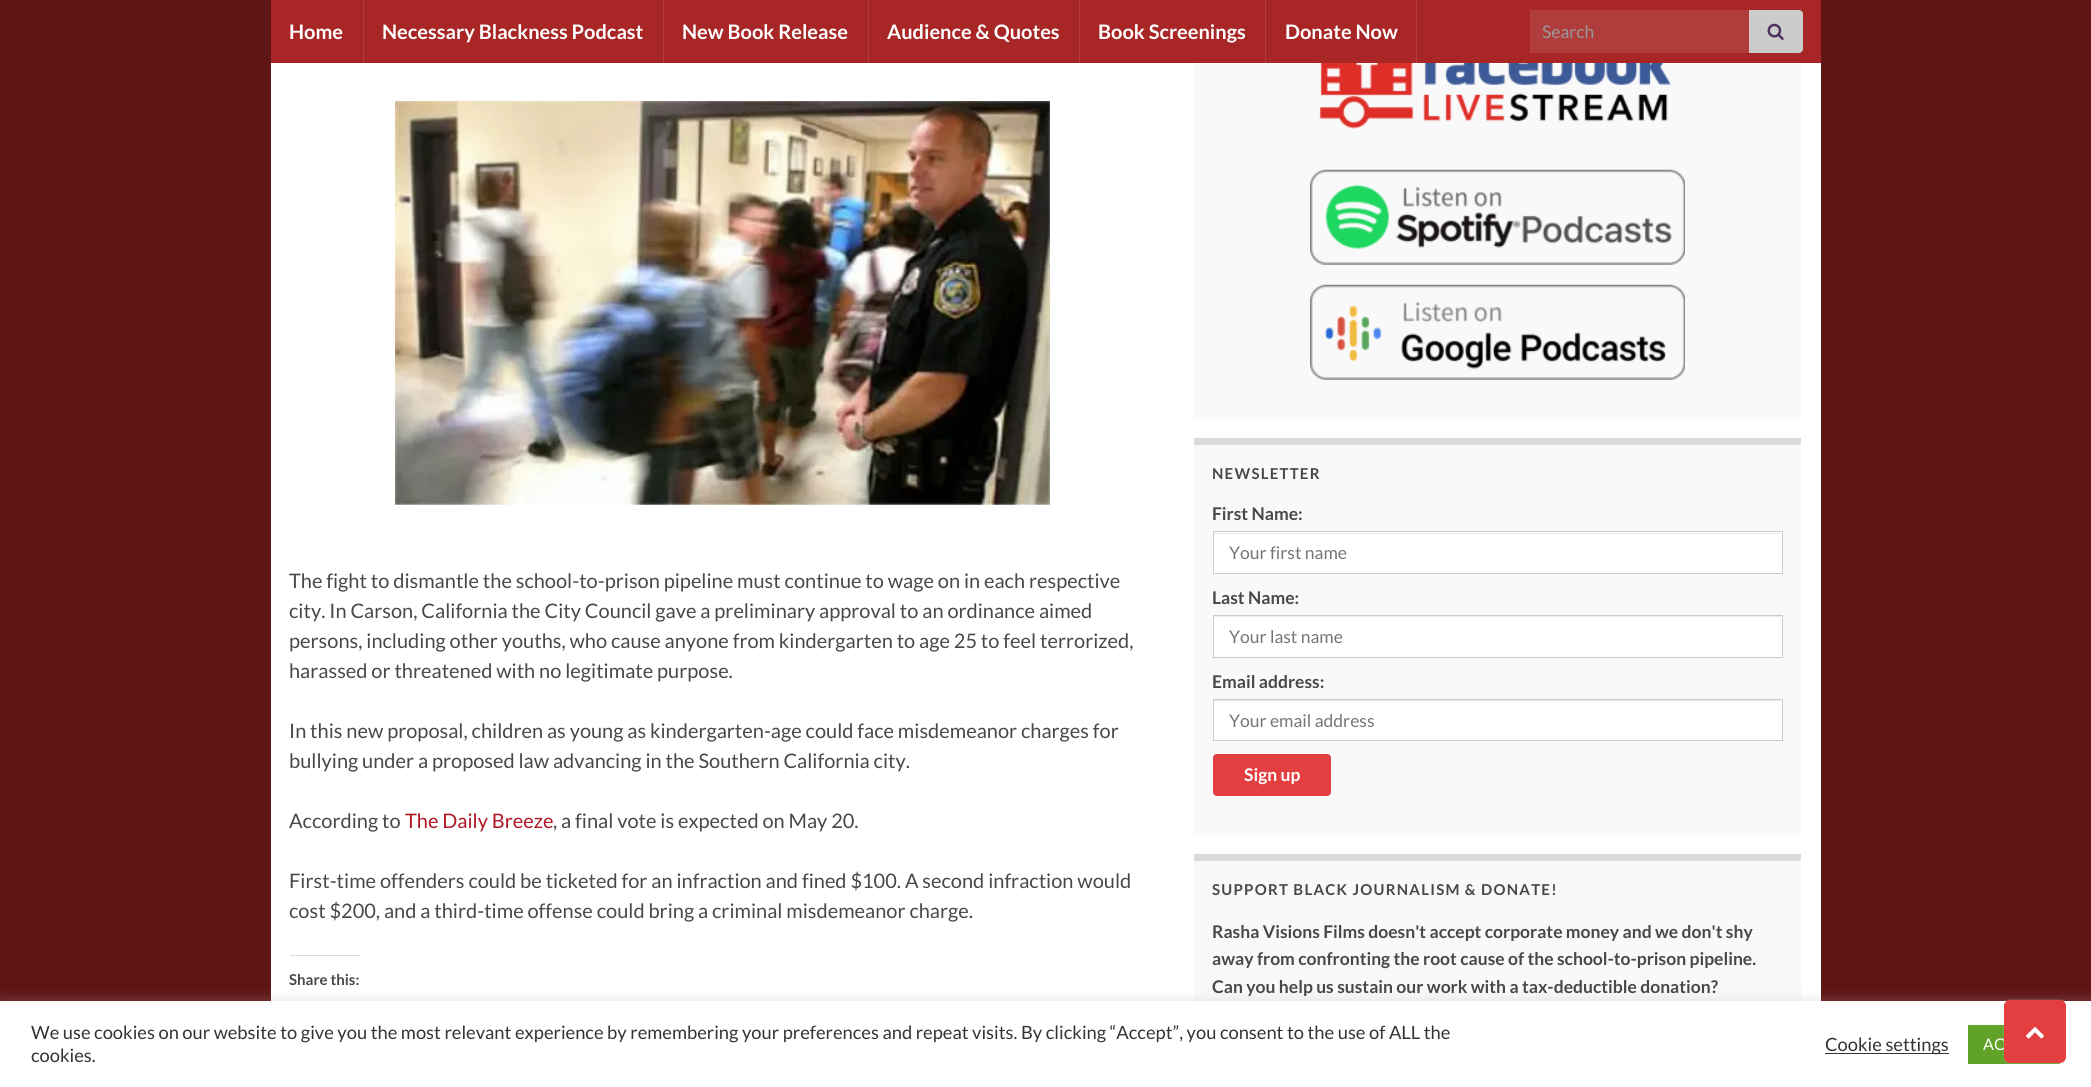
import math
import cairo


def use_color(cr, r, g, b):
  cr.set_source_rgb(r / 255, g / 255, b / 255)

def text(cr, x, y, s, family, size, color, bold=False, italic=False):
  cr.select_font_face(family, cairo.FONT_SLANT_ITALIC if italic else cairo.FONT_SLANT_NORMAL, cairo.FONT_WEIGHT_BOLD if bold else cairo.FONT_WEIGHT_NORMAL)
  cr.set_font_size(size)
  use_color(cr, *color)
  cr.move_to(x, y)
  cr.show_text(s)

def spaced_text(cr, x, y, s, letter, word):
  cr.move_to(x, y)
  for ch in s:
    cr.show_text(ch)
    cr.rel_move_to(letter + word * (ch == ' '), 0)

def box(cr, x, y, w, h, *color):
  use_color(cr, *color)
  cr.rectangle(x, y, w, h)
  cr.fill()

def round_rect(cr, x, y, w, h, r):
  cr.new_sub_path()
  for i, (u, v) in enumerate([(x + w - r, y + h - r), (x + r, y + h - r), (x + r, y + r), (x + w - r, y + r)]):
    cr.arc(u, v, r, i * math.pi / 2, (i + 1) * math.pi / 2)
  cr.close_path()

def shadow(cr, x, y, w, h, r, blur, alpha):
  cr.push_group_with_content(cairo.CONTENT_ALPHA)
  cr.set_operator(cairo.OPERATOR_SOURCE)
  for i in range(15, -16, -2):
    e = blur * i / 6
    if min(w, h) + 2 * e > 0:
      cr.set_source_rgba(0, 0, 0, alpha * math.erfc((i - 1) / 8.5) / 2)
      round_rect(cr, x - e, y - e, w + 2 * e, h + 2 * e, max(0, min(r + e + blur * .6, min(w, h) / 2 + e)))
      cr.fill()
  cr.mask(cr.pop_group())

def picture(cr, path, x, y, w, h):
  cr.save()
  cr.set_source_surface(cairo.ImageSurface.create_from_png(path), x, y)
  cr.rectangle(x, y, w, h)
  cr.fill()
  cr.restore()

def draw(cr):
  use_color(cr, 96, 21, 21)
  cr.paint()
  box(cr, 271, 0, 1550, 63, 168, 38, 38)
  box(cr, 363, 0, 1, 63, 177, 60, 60)
  box(cr, 663, 0, 1, 63, 177, 60, 60)
  box(cr, 868, 0, 1, 63, 177, 60, 60)
  box(cr, 1079, 0, 1, 63, 177, 60, 60)
  box(cr, 1265, 0, 1, 63, 177, 60, 60)
  box(cr, 1416, 0, 1, 63, 177, 60, 60)
  box(cr, 1530, 10, 219, 43, 177, 60, 60)
  use_color(cr, 204, 204, 204)
  cr.new_path()
  cr.move_to(1749, 10)
  cr.line_to(1799, 10)
  cr.curve_to(1801, 10, 1803, 12, 1803, 14)
  cr.line_to(1803, 49)
  cr.curve_to(1803, 51, 1801, 53, 1799, 53)
  cr.line_to(1749, 53)
  cr.close_path()
  cr.fill()
  picture(cr, "img_01.png", 1767, 23, 17, 17)
  box(cr, 271, 63, 1550, 938, 255, 255, 255)
  picture(cr, "img_02.png", 395, 101, 655, 404)
  box(cr, 290, 955, 70, 1, 220, 220, 222)
  box(cr, 1194, 63, 607, 356, 249, 249, 249)
  picture(cr, "img_03.png", 1319, 63, 353, 66)
  picture(cr, "img_04.png", 1310, 169, 375, 96)
  picture(cr, "img_05.png", 1310, 284, 375, 96)
  box(cr, 1194, 445, 607, 390, 249, 249, 249)
  box(cr, 1194, 438, 607, 7, 219, 219, 219)
  box(cr, 1214, 532, 568, 41, 255, 255, 255)
  box(cr, 1214, 533, 567, 1, 236, 236, 236)
  cr.rectangle(1213.5, 531.5, 569, 42)
  use_color(cr, 204, 204, 204)
  cr.set_line_width(1)
  cr.stroke()
  box(cr, 1214, 616, 568, 41, 255, 255, 255)
  box(cr, 1214, 616, 567, 1, 236, 236, 236)
  cr.rectangle(1213.5, 615.5, 569, 42)
  use_color(cr, 204, 204, 204)
  cr.stroke()
  box(cr, 1214, 700, 568, 40, 255, 255, 255)
  box(cr, 1214, 700, 567, 1, 236, 236, 236)
  cr.rectangle(1213.5, 699.5, 569, 41)
  use_color(cr, 204, 204, 204)
  cr.stroke()
  use_color(cr, 227, 63, 64)
  round_rect(cr, 1213, 754, 118, 42, 4)
  cr.fill()
  box(cr, 1194, 861, 607, 140, 249, 249, 249)
  box(cr, 1194, 854, 607, 7, 219, 219, 219)
  use_color(cr, 172, 171, 171)
  shadow(cr, 0, 1000, 2091, 86, 0, 6, 0.3)
  box(cr, 0, 1001, 2091, 86, 255, 255, 255)
  box(cr, 1825, 1053, 124, 1, 51, 51, 51)
  box(cr, 1968, 1025, 92, 39, 97, 162, 41)
  use_color(cr, 255, 255, 255)
  shadow(cr, 2004, 1000, 62, 63, 6, 1, 0.3)
  text(cr, 289, 39, "Home", "Lato", 20, (255, 255, 255), bold=True)
  text(cr, 382, 39, "Necessary Blackness Podcast", "Lato", 20, (255, 255, 255), bold=True)
  text(cr, 682, 39, "New Book Release", "Lato", 20, (255, 255, 255), bold=True)
  text(cr, 887, 39, "Audience & Quotes", "Lato", 20, (255, 255, 255), bold=True)
  text(cr, 1098, 39, "Book Screenings", "Lato", 20, (255, 255, 255), bold=True)
  text(cr, 1285, 39, "Donate Now", "Lato", 20, (255, 255, 255), bold=True)
  text(cr, 1542, 38, "Search", "Lato", 17.5, (153, 153, 153))
  text(cr, 289, 588, "The fight to dismantle the school-to-prison pipeline must continue to wage on in each respective", "Lato", 20, (74, 71, 75))
  text(cr, 289, 618, "city. In Carson, California the City Council gave a preliminary approval to an ordinance aimed", "Lato", 20, (74, 71, 75))
  text(cr, 289, 648, "persons, including other youths, who cause anyone from kindergarten to age 25 to feel terrorized,", "Lato", 20, (74, 71, 75))
  text(cr, 289, 678, "harassed or threatened with no legitimate purpose.", "Lato", 20, (74, 71, 75))
  text(cr, 289, 738, "In this new proposal, children as young as kindergarten-age could face misdemeanor charges for", "Lato", 20, (74, 71, 75))
  text(cr, 289, 768, "bullying under a proposed law advancing in the Southern California city.", "Lato", 20, (74, 71, 75))
  text(cr, 289, 828, "According to", "Lato", 20, (74, 71, 75))
  text(cr, 405, 828, "The Daily Breeze", "Lato", 20, (175, 23, 37))
  text(cr, 553, 828, ", a final vote is expected on May 20.", "Lato", 20, (74, 71, 75))
  text(cr, 289, 888, "First-time offenders could be ticketed for an infraction and fined $100. A second infraction would", "Lato", 20, (74, 71, 75))
  text(cr, 289, 918, "cost $200, and a third-time offense could bring a criminal misdemeanor charge.", "Lato", 20, (74, 71, 75))
  text(cr, 289, 985, "Share this:", "Lato", 15, (74, 71, 75), bold=True)
  spaced_text(cr, 1212, 479, "NEWSLETTER", 1.25, 0)
  text(cr, 1212, 520, "First Name:", "Lato", 17.5, (74, 71, 75), bold=True)
  text(cr, 1229, 559, "Your first name", "Lato", 17.5, (117, 117, 117))
  text(cr, 1212, 604, "Last Name:", "Lato", 17.5, (74, 71, 75), bold=True)
  text(cr, 1229, 643, "Your last name", "Lato", 17.5, (117, 117, 117))
  text(cr, 1212, 688, "Email address:", "Lato", 17.5, (74, 71, 75), bold=True)
  text(cr, 1229, 727, "Your email address", "Lato", 17.5, (117, 117, 117))
  text(cr, 1244, 781, "Sign up", "Lato", 17.5, (255, 255, 255), bold=True)
  cr.set_font_size(15)
  use_color(cr, 74, 71, 75)
  spaced_text(cr, 1212, 895, "SUPPORT BLACK JOURNALISM & DONATE!", 1.25, 0)
  text(cr, 1212, 938, "Rasha Visions Films doesn't accept corporate money and we don't shy", "Lato", 17.5, (74, 71, 75), bold=True)
  text(cr, 1212, 965, "away from confronting the root cause of the school-to-prison pipeline.", "Lato", 17.5, (74, 71, 75), bold=True)
  text(cr, 1212, 993, "Can you help us sustain our work with a tax-deductible donation?", "Lato", 17.5, (74, 71, 75), bold=True)
  text(cr, 31, 1039, "We use cookies on our website to give you the most relevant experience by remembering your preferences and repeat visits. By clicking “Accept”, you consent to the use of ALL the", "Lato", 18.33, (51, 51, 51))
  text(cr, 31, 1062, "cookies.", "Lato", 18.33, (51, 51, 51))
  text(cr, 1825, 1051, "Cookie settings", "Lato", 18.33, (51, 51, 51))
  text(cr, 1983, 1050, "AC", "Lato", 16, (255, 255, 255))
  use_color(cr, 227, 63, 64)
  round_rect(cr, 2004, 1000, 62, 63, 6)
  cr.fill()
  picture(cr, "img_06.png", 2026, 1027, 18, 12)


surface = cairo.ImageSurface(cairo.FORMAT_RGB24, 2091, 1087)
cr = cairo.Context(surface)
options = cairo.FontOptions()
options.set_hint_metrics(cairo.HINT_METRICS_OFF)
options.set_hint_style(cairo.HINT_STYLE_NONE)
cr.set_font_options(options)
cr.set_miter_limit(4)
draw(cr)
surface.write_to_png("out.png")
